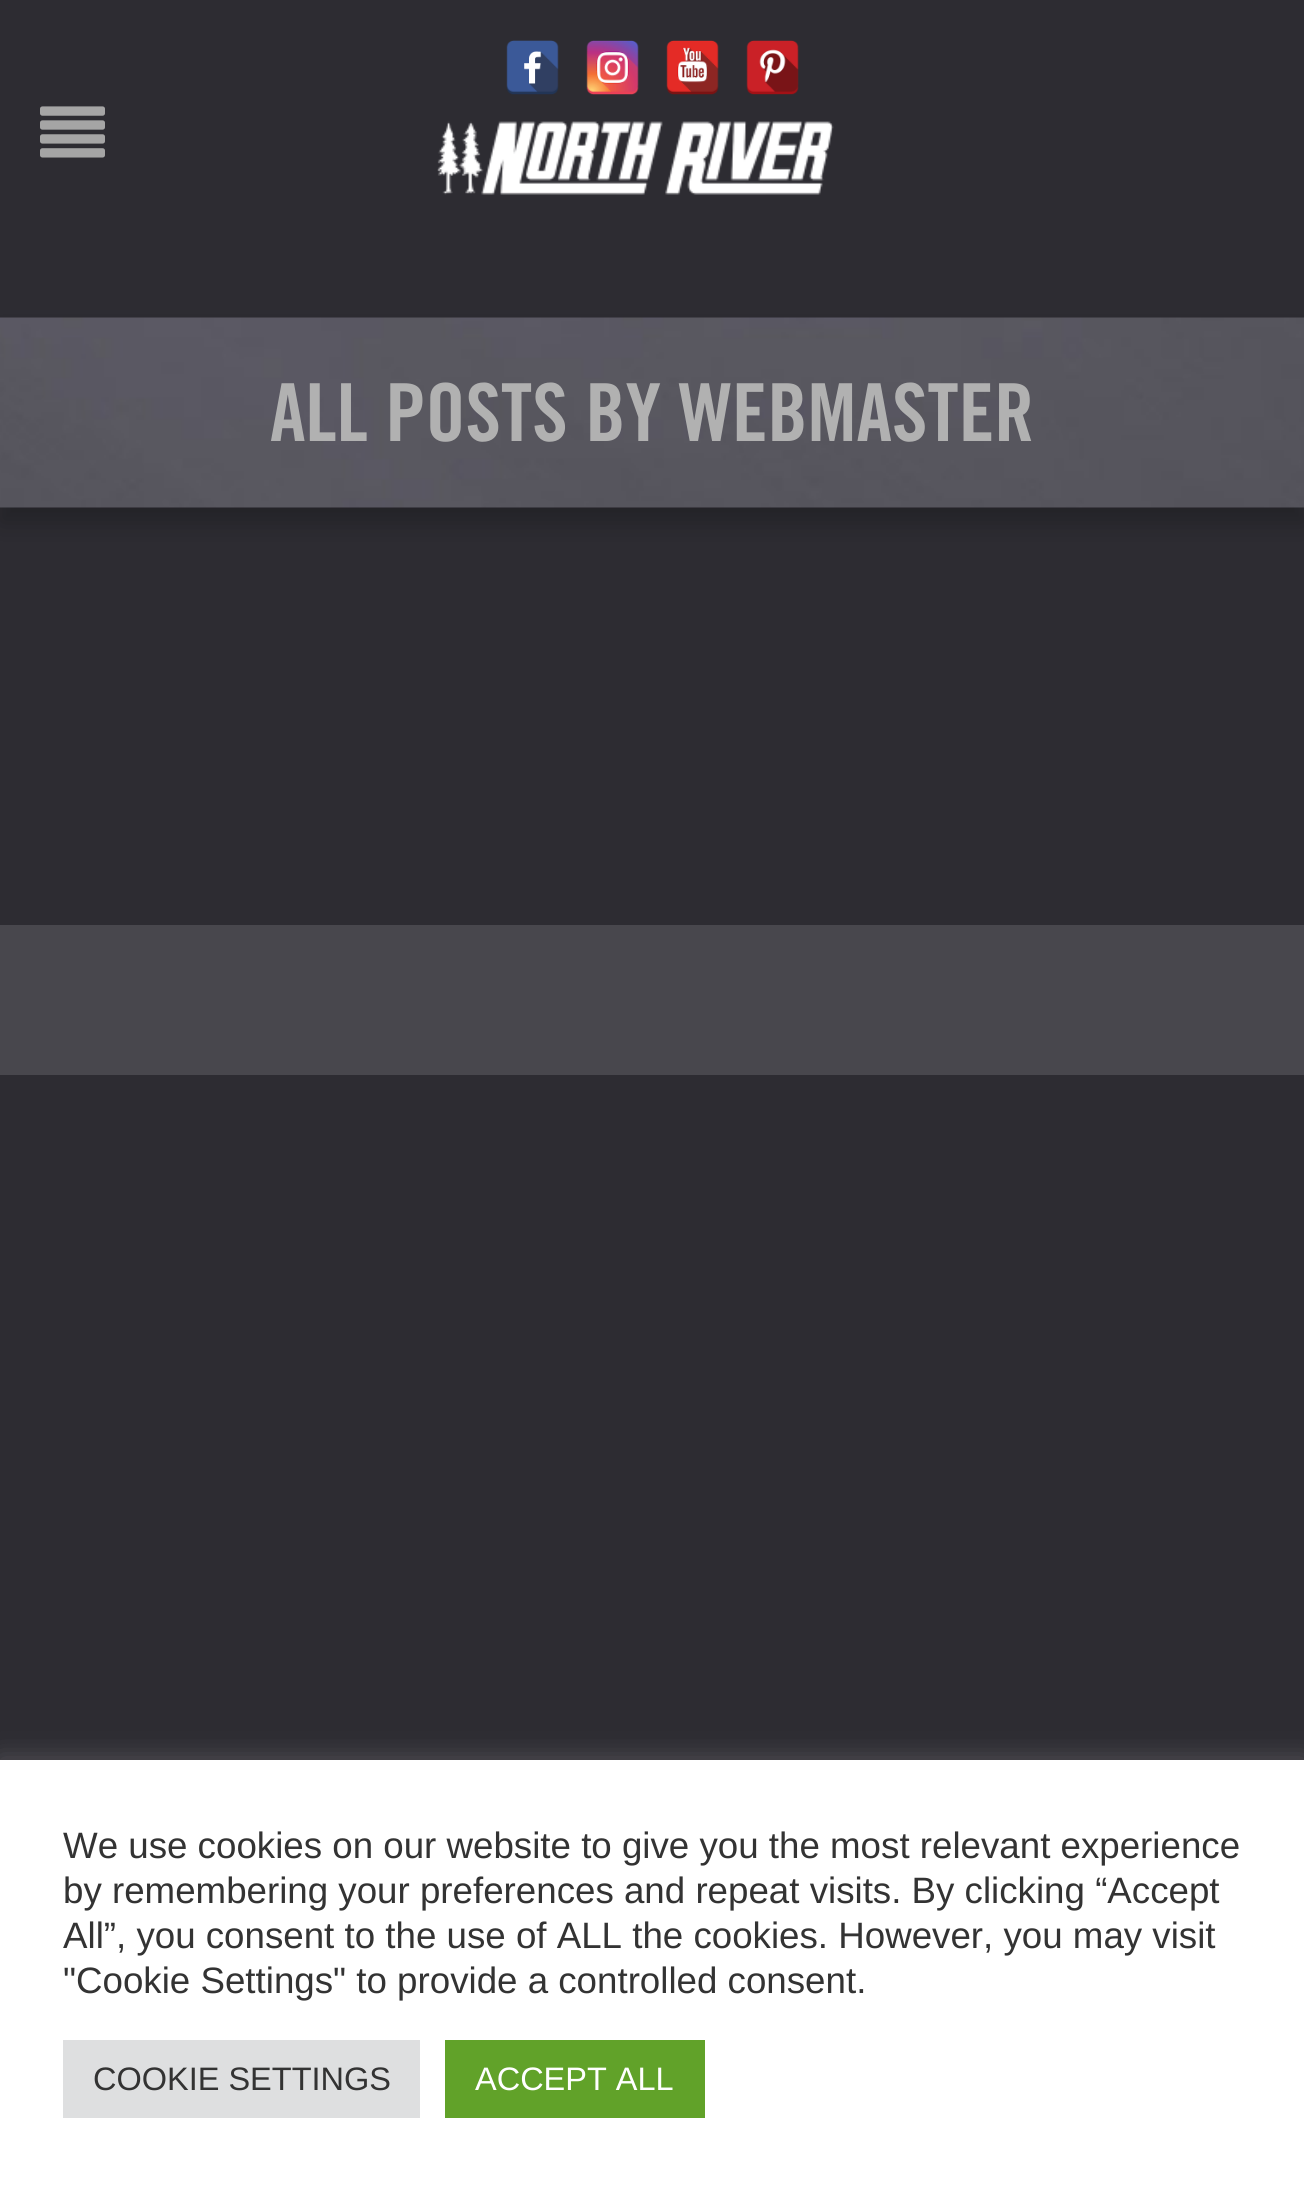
import math
import cairo


def use_color(cr, r, g, b):
  cr.set_source_rgb(r / 255, g / 255, b / 255)

def text(cr, x, y, s, family, size, color, bold=False, italic=False):
  cr.select_font_face(family, cairo.FONT_SLANT_ITALIC if italic else cairo.FONT_SLANT_NORMAL, cairo.FONT_WEIGHT_BOLD if bold else cairo.FONT_WEIGHT_NORMAL)
  cr.set_font_size(size)
  use_color(cr, *color)
  cr.move_to(x, y)
  cr.show_text(s)

def box(cr, x, y, w, h, *color):
  use_color(cr, *color)
  cr.rectangle(x, y, w, h)
  cr.fill()

def round_rect(cr, x, y, w, h, r):
  cr.new_sub_path()
  for i, (u, v) in enumerate([(x + w - r, y + h - r), (x + r, y + h - r), (x + r, y + r), (x + w - r, y + r)]):
    cr.arc(u, v, r, i * math.pi / 2, (i + 1) * math.pi / 2)
  cr.close_path()

def shadow(cr, x, y, w, h, r, blur, alpha):
  cr.push_group_with_content(cairo.CONTENT_ALPHA)
  cr.set_operator(cairo.OPERATOR_SOURCE)
  for i in range(15, -16, -2):
    e = blur * i / 6
    if min(w, h) + 2 * e > 0:
      cr.set_source_rgba(0, 0, 0, alpha * math.erfc((i - 1) / 8.5) / 2)
      round_rect(cr, x - e, y - e, w + 2 * e, h + 2 * e, max(0, min(r + e + blur * .6, min(w, h) / 2 + e)))
      cr.fill()
  cr.mask(cr.pop_group())

def picture(cr, path, x, y, w, h):
  cr.save()
  cr.set_source_surface(cairo.ImageSurface.create_from_png(path), x, y)
  cr.rectangle(x, y, w, h)
  cr.fill()
  cr.restore()

def draw(cr):
  use_color(cr, 45, 44, 50)
  cr.paint()
  picture(cr, "img_01.png", 506, 40, 53, 55)
  picture(cr, "img_02.png", 586, 40, 53, 55)
  picture(cr, "img_03.png", 666, 40, 53, 55)
  picture(cr, "img_04.png", 746, 40, 53, 55)
  picture(cr, "img_05.png", 40, 106, 65, 52)
  picture(cr, "img_06.png", 437, 121, 397, 74)
  use_color(cr, 0, 0, 0)
  shadow(cr, 0, 333, 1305, 190, 0, 12.5, 0.23)
  picture(cr, "img_07.png", 0, 317, 1304, 191)
  box(cr, 0, 925, 1304, 150, 72, 71, 77)
  use_color(cr, 172, 171, 171)
  shadow(cr, 0, 1758, 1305, 432, 0, 12.5, 0.3)
  box(cr, 0, 1760, 1304, 432, 255, 255, 255)
  box(cr, 63, 2040, 357, 78, 222, 223, 224)
  box(cr, 445, 2040, 260, 78, 97, 162, 41)
  text(cr, 270, 441, "ALL POSTS BY WEBMASTER", "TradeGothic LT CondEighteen", 80, (177, 177, 177), bold=True)
  text(cr, 63, 1858, "We use cookies on our website to give you the most relevant experience", "Liberation Sans", 36.7, (51, 51, 51))
  text(cr, 63, 1903, "by remembering your preferences and repeat visits. By clicking “Accept", "Liberation Sans", 36.7, (51, 51, 51))
  text(cr, 63, 1948, "All”, you consent to the use of ALL the cookies. However, you may visit", "Liberation Sans", 36.7, (51, 51, 51))
  text(cr, 63, 1993, "\"Cookie Settings\" to provide a controlled consent.", "Liberation Sans", 36.7, (51, 51, 51))
  text(cr, 93, 2090, "COOKIE SETTINGS", "Liberation Sans", 32.5, (51, 51, 51))
  text(cr, 475, 2090, "ACCEPT ALL", "Liberation Sans", 32.5, (255, 255, 255))


surface = cairo.ImageSurface(cairo.FORMAT_RGB24, 1304, 2192)
cr = cairo.Context(surface)
options = cairo.FontOptions()
options.set_hint_metrics(cairo.HINT_METRICS_OFF)
options.set_hint_style(cairo.HINT_STYLE_NONE)
cr.set_font_options(options)
cr.set_miter_limit(4)
draw(cr)
surface.write_to_png("out.png")
